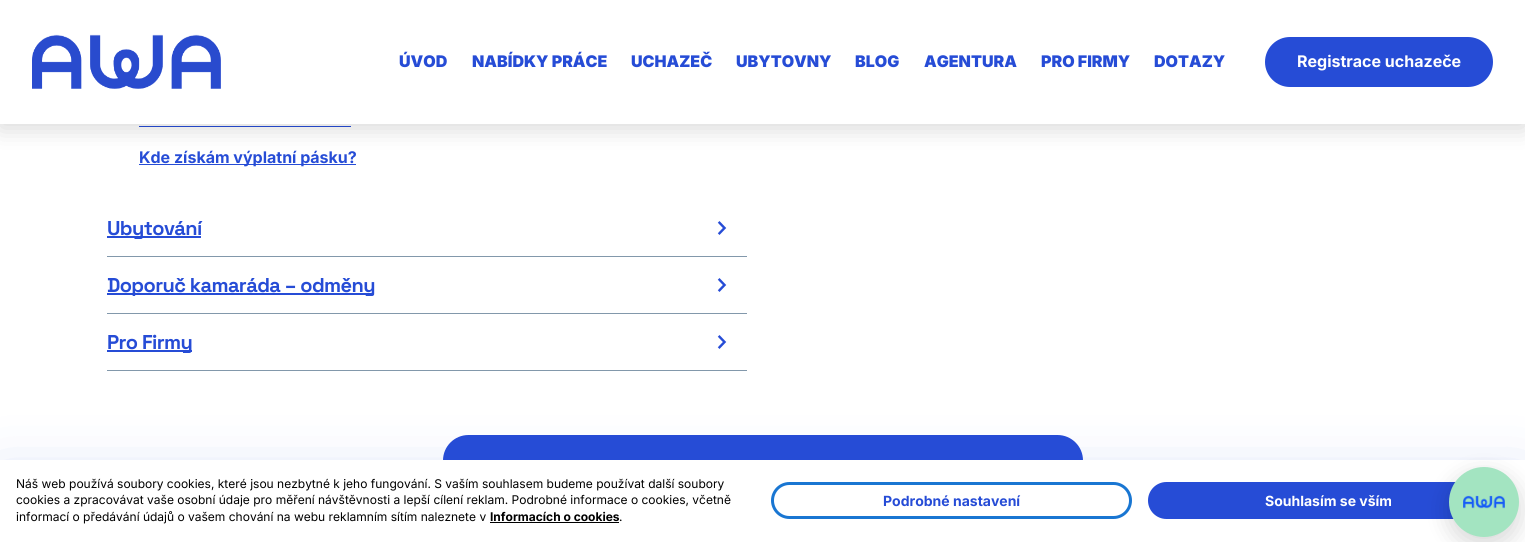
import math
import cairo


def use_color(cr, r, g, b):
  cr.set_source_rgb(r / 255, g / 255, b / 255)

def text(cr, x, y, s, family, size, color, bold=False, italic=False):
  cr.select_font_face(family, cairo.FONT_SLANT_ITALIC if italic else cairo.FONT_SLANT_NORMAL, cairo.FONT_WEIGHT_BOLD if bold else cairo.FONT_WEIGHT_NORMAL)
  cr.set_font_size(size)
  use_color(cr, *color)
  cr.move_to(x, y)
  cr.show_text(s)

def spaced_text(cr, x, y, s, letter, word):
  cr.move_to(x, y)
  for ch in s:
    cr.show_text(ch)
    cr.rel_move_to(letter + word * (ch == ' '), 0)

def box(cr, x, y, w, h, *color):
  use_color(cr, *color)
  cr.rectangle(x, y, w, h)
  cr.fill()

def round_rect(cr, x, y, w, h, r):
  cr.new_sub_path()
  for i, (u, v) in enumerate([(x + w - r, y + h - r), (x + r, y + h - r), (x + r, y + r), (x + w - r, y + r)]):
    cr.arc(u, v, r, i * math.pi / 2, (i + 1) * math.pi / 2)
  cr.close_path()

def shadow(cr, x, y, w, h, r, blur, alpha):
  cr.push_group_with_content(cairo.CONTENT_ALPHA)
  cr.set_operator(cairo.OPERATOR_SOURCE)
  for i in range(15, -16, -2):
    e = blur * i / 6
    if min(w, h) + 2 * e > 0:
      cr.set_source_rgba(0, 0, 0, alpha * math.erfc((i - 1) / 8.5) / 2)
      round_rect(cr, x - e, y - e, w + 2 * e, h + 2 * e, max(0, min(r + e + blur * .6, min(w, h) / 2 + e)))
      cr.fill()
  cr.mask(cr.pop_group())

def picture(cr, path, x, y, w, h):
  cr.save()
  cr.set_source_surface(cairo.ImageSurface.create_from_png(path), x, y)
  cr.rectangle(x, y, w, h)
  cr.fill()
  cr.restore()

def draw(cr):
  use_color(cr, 255, 255, 255)
  cr.paint()
  box(cr, 139, 126, 212, 1, 38, 76, 214)
  box(cr, 139, 164, 217, 1, 38, 76, 214)
  use_color(cr, 0, 0, 0)
  shadow(cr, 0, 4, 1525, 124, 0, 12, 0.16)
  box(cr, 0, 0, 1525, 124, 255, 255, 255)
  picture(cr, "img_01.png", 32, 34, 189, 55)
  use_color(cr, 38, 76, 214)
  round_rect(cr, 1265, 37, 228, 50, 25)
  cr.fill()
  box(cr, 107, 256, 640, 1, 130, 152, 171)
  box(cr, 107, 236, 94, 2, 38, 76, 214)
  picture(cr, "img_02.png", 717, 221, 10, 14)
  box(cr, 107, 313, 640, 1, 130, 152, 171)
  box(cr, 107, 293, 267, 2, 38, 76, 214)
  picture(cr, "img_02.png", 717, 278, 10, 14)
  box(cr, 107, 370, 640, 1, 130, 152, 171)
  box(cr, 107, 350, 85, 2, 38, 76, 214)
  picture(cr, "img_02.png", 717, 335, 10, 14)
  round_rect(cr, 443, 435, 640, 51, 25.5)
  cr.fill()
  use_color(cr, 38, 76, 214)
  shadow(cr, 0, 484, 1525, 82, 0, 32, 0.25)
  box(cr, 0, 460, 1525, 82, 255, 255, 255)
  box(cr, 490, 522, 129, 1, 0, 0, 0)
  round_rect(cr, 772.5, 483.5, 358, 34, 17)
  use_color(cr, 25, 118, 210)
  cr.set_line_width(3)
  cr.stroke()
  use_color(cr, 38, 76, 214)
  round_rect(cr, 1148, 482, 361, 37, 18.5)
  cr.fill()
  use_color(cr, 0, 0, 0)
  shadow(cr, 1449, 475, 70, 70, 35, 12, 0.16)
  use_color(cr, 163, 228, 193)
  cr.arc(1484, 502, 35, 0, 2 * math.pi)
  cr.fill()
  picture(cr, "img_03.png", 1463, 495, 42, 14)
  text(cr, 399, 67, "ÚVOD", "Inter Black", 16, (38, 76, 214))
  text(cr, 472, 67, "NABÍDKY PRÁCE", "Inter Black", 16, (38, 76, 214))
  text(cr, 631, 67, "UCHAZEČ", "Inter Black", 16, (38, 76, 214))
  text(cr, 736, 67, "UBYTOVNY", "Inter Black", 16, (38, 76, 214))
  text(cr, 855, 67, "BLOG", "Inter Black", 16, (38, 76, 214))
  text(cr, 924, 67, "AGENTURA", "Inter Black", 16, (38, 76, 214))
  text(cr, 1041, 67, "PRO FIRMY", "Inter Black", 16, (38, 76, 214))
  text(cr, 1154, 67, "DOTAZY", "Inter Black", 16, (38, 76, 214))
  text(cr, 1297, 67, "Registrace uchazeče", "Inter", 16, (255, 255, 255), bold=True)
  text(cr, 139, 163, "Kde získám výplatní pásku?", "Inter", 16, (38, 76, 214), bold=True)
  cr.select_font_face("Space Grotesk", cairo.FONT_SLANT_NORMAL, cairo.FONT_WEIGHT_BOLD)
  cr.set_font_size(20)
  spaced_text(cr, 107, 235, "Ubytování", -0.6, 0)
  spaced_text(cr, 107, 292, "Doporuč kamaráda – odměny", -0.6, 0)
  spaced_text(cr, 107, 349, "Pro Firmy", -0.6, 0)
  text(cr, 16, 488, "Náš web používá soubory cookies, které jsou nezbytné k jeho fungování. S vaším souhlasem budeme používat další soubory", "Inter", 12, (0, 0, 0))
  text(cr, 16, 504, "cookies a zpracovávat vaše osobní údaje pro měření návštěvnosti a lepší cílení reklam. Podrobné informace o cookies, včetně", "Inter", 12, (0, 0, 0))
  text(cr, 16, 521, "informací o předávání údajů o vašem chování na webu reklamním sítím naleznete v", "Inter", 12, (0, 0, 0))
  text(cr, 490, 521, "Informacích o cookies", "Inter", 12, (0, 0, 0), bold=True)
  text(cr, 619, 521, ".", "Inter", 12, (0, 0, 0))
  text(cr, 883, 506, "Podrobné nastavení", "Inter", 14, (38, 76, 214), bold=True)
  text(cr, 1265, 506, "Souhlasím se vším", "Inter", 14, (255, 255, 255), bold=True)


surface = cairo.ImageSurface(cairo.FORMAT_RGB24, 1525, 542)
cr = cairo.Context(surface)
options = cairo.FontOptions()
options.set_hint_metrics(cairo.HINT_METRICS_OFF)
options.set_hint_style(cairo.HINT_STYLE_NONE)
cr.set_font_options(options)
cr.set_miter_limit(4)
draw(cr)
surface.write_to_png("out.png")
